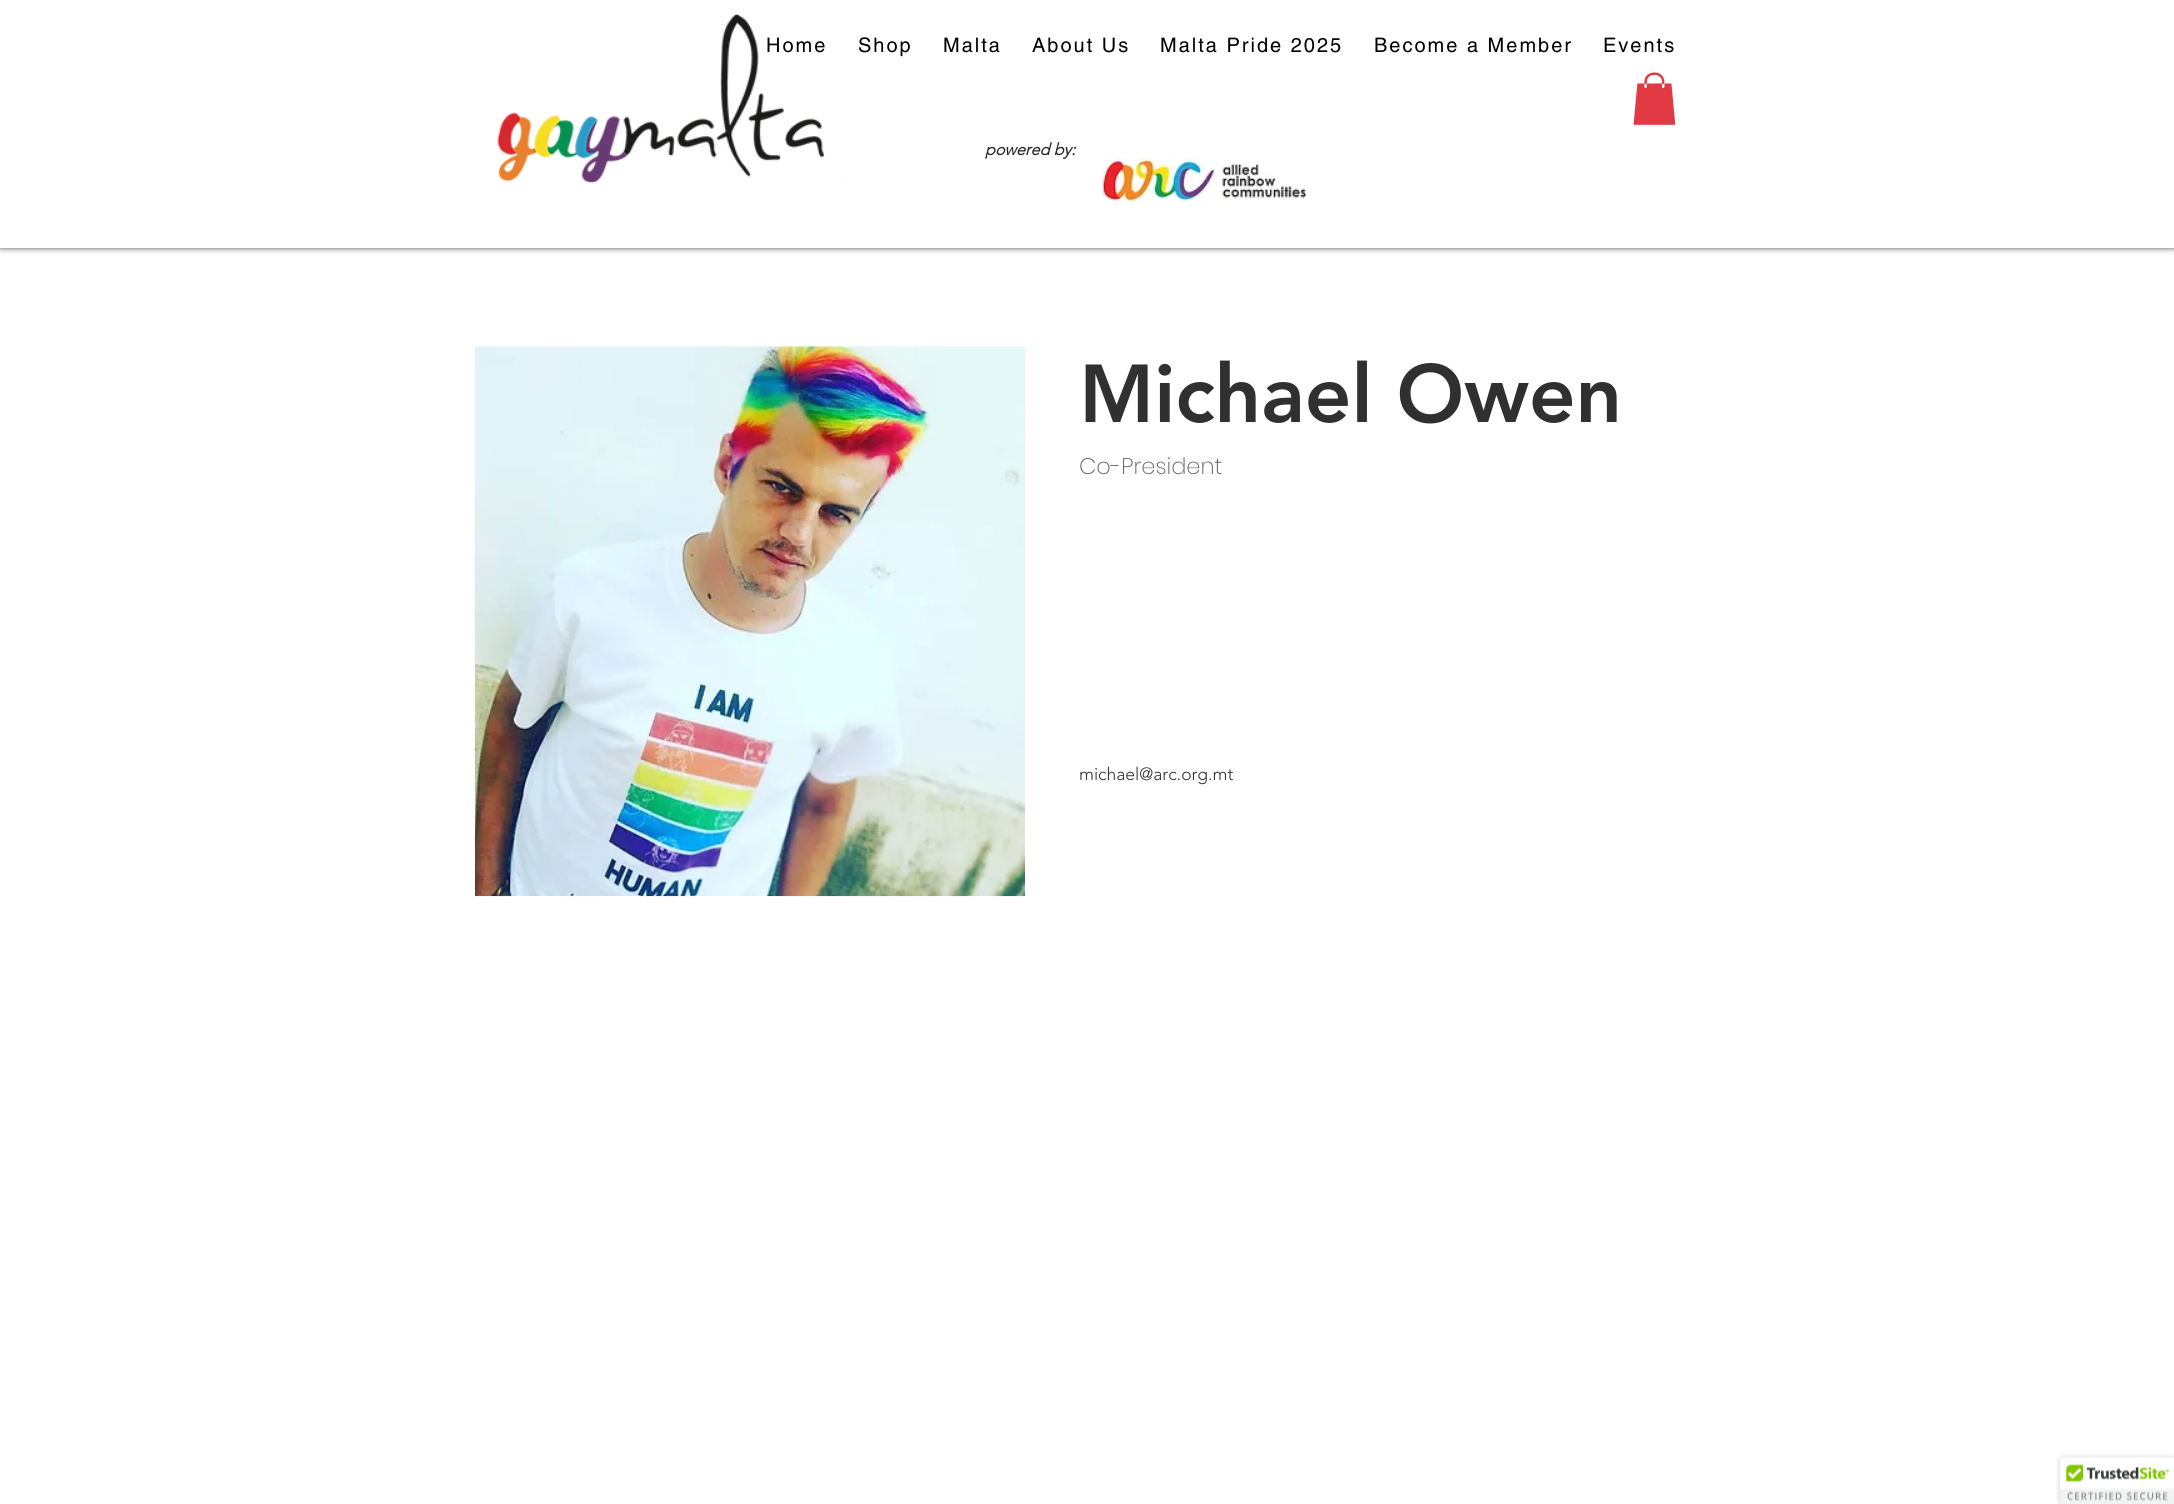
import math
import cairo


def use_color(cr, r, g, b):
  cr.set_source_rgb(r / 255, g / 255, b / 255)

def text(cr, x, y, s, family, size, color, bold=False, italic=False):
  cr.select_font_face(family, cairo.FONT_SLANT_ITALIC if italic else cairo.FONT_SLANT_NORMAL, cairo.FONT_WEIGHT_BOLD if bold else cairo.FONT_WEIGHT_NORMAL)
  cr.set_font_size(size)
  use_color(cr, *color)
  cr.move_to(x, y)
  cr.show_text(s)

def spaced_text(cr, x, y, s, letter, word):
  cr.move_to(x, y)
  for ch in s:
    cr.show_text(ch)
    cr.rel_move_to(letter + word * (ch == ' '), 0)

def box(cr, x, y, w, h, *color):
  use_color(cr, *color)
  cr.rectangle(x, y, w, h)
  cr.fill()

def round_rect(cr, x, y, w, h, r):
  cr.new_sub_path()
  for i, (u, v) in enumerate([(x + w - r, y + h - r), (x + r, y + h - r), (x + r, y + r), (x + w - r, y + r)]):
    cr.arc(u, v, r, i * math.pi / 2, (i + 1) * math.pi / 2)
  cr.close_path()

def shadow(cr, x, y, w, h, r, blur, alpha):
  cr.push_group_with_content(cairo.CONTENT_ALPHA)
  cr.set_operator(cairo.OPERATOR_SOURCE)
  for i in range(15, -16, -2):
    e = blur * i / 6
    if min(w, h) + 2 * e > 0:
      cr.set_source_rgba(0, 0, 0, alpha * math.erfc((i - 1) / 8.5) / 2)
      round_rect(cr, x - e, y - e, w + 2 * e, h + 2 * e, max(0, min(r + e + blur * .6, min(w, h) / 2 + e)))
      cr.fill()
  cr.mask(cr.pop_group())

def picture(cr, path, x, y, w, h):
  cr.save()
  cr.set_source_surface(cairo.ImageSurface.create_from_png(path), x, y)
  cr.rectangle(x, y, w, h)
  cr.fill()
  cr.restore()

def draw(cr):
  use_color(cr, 255, 255, 255)
  cr.paint()
  use_color(cr, 0, 0, 0)
  shadow(cr, 0, 0, 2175, 248, 0, 3, 0.7)
  box(cr, 0, 0, 2174, 248, 255, 255, 255)
  picture(cr, "img_01.png", 497, 13, 344, 170)
  box(cr, 760, 58, 1, 1, 255, 255, 255)
  picture(cr, "img_02.png", 1633, 72, 43, 53)
  picture(cr, "img_03.png", 1101, 157, 206, 51)
  picture(cr, "img_04.png", 475, 346, 550, 551)
  use_color(cr, 0, 0, 0)
  shadow(cr, 2060, 1458, 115, 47, 2.5, 3, 0.2)
  picture(cr, "img_05.png", 2060, 1457, 114, 47)
  cr.select_font_face("helvetica")
  cr.set_font_size(20)
  use_color(cr, 0, 0, 0)
  spaced_text(cr, 766, 52, "Home", 2, 0)
  spaced_text(cr, 858, 52, "Shop", 2, 0)
  spaced_text(cr, 943, 52, "Malta", 2, 0)
  spaced_text(cr, 1032, 52, "About Us", 2, 0)
  spaced_text(cr, 1160, 52, "Malta Pride 2025", 2, 0)
  spaced_text(cr, 1374, 52, "Become a Member", 2, 0)
  spaced_text(cr, 1603, 52, "Events", 2, 0)
  text(cr, 985, 155, "powered by:", "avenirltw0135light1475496", 16.25, (41, 41, 41), bold=True, italic=True)
  text(cr, 1079, 422, "Michael Owen", "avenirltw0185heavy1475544 Black", 81.25, (48, 48, 48))
  text(cr, 1079, 474, "Co-President", "Poppins ExtraLight", 22.5, (96, 96, 96))
  text(cr, 1079, 780, "michael@arc.org.mt", "avenirltw0135light1475496 Light", 17.5, (48, 48, 48))


surface = cairo.ImageSurface(cairo.FORMAT_RGB24, 2174, 1504)
cr = cairo.Context(surface)
options = cairo.FontOptions()
options.set_hint_metrics(cairo.HINT_METRICS_OFF)
options.set_hint_style(cairo.HINT_STYLE_NONE)
cr.set_font_options(options)
cr.set_miter_limit(4)
draw(cr)
surface.write_to_png("out.png")
